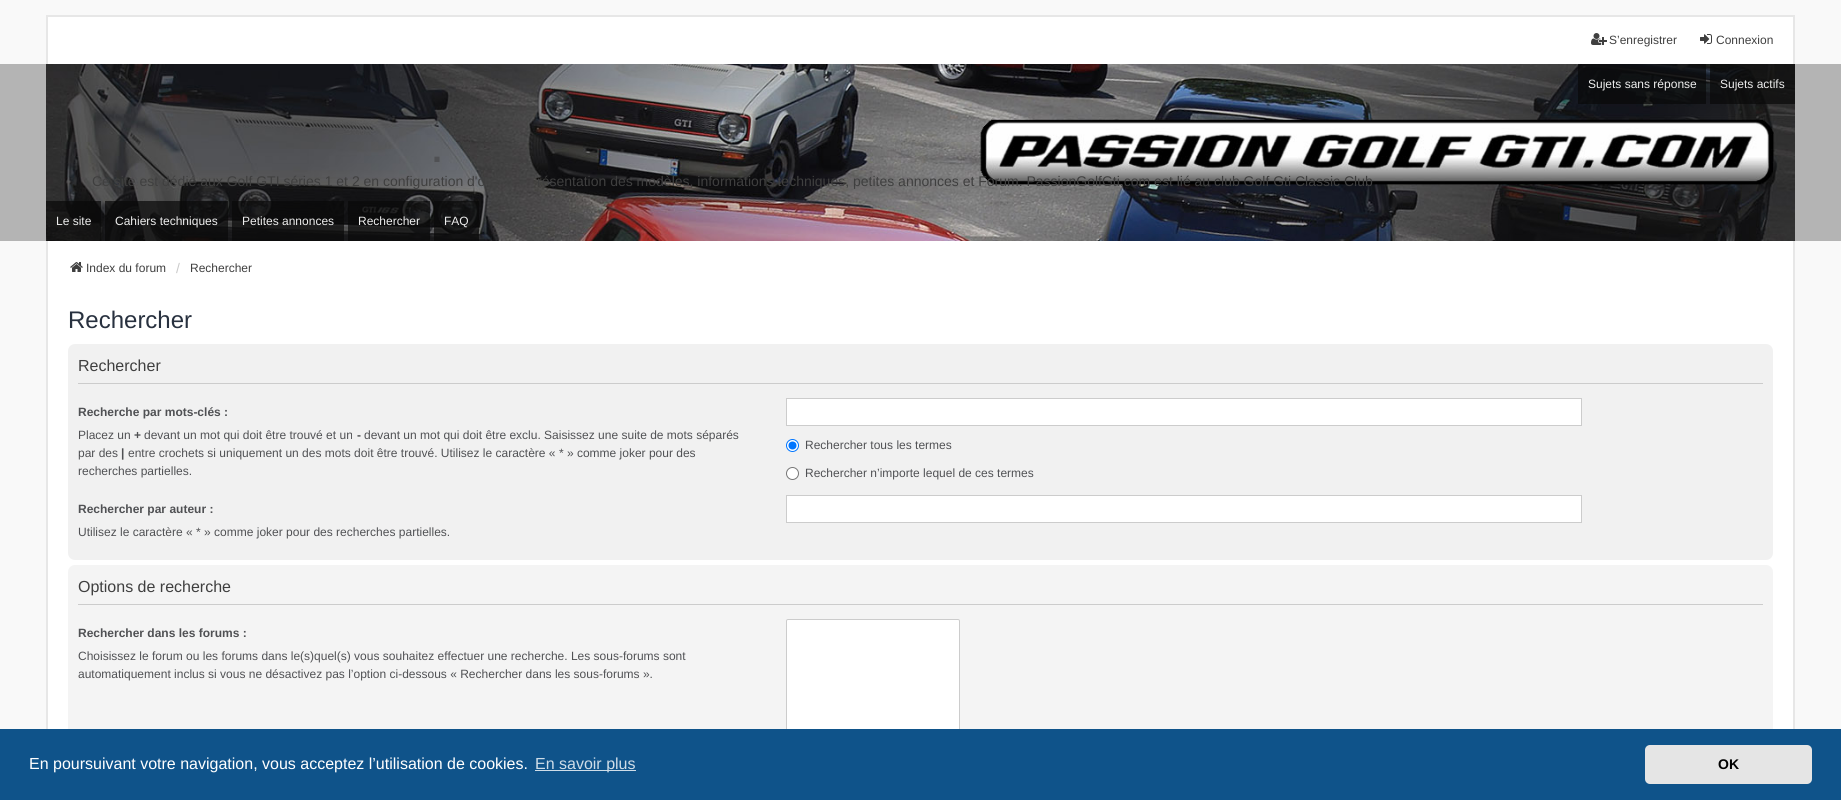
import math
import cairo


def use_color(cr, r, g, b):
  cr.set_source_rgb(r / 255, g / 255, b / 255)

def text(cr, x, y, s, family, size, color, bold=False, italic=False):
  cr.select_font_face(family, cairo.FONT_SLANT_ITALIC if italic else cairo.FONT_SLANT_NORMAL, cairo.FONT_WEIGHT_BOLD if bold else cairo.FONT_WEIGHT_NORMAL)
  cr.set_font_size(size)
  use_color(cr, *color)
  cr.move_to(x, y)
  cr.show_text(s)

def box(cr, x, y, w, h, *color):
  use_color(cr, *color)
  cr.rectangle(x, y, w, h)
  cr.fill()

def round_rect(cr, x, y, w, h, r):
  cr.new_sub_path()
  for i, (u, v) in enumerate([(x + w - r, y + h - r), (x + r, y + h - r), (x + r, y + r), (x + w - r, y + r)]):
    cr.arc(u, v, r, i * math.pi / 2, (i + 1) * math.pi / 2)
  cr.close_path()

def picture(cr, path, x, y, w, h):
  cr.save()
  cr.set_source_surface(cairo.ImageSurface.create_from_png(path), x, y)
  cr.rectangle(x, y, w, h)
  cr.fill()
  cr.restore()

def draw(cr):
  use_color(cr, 249, 249, 249)
  cr.paint()
  box(cr, 48, 17, 1745, 47, 255, 255, 255)
  box(cr, 46, 15, 1749, 2, 231, 231, 231)
  box(cr, 1793, 15, 2, 49, 231, 231, 231)
  box(cr, 46, 15, 2, 49, 231, 231, 231)
  picture(cr, "img_01.png", 1591, 33, 16, 12)
  picture(cr, "img_02.png", 1700, 34, 12, 10)
  box(cr, 0, 64, 1841, 177, 180, 180, 180)
  picture(cr, "img_03.png", 46, 64, 1749, 177)
  cr.set_source_rgba(0.039, 0.039, 0.039, 0.7)
  cr.rectangle(1578, 64, 128, 40)
  cr.fill()
  cr.rectangle(1710, 64, 85, 40)
  cr.fill()
  cr.rectangle(46, 201, 55, 40)
  cr.fill()
  cr.rectangle(105, 201, 123, 40)
  cr.fill()
  cr.rectangle(232, 201, 112, 40)
  cr.fill()
  cr.rectangle(348, 201, 82, 40)
  cr.fill()
  cr.rectangle(434, 201, 45, 40)
  cr.fill()
  box(cr, 48, 241, 1745, 488, 255, 255, 255)
  box(cr, 1793, 241, 2, 488, 231, 231, 231)
  box(cr, 46, 241, 2, 488, 231, 231, 231)
  picture(cr, "img_04.png", 70, 262, 13, 10)
  use_color(cr, 241, 241, 241)
  round_rect(cr, 68, 344, 1705, 216, 7)
  cr.fill()
  box(cr, 78, 383, 1685, 1, 204, 204, 204)
  use_color(cr, 255, 255, 255)
  cr.rectangle(786.5, 398.5, 795, 27)
  cr.fill_preserve()
  use_color(cr, 204, 204, 204)
  cr.set_line_width(1)
  cr.stroke()
  use_color(cr, 255, 255, 255)
  cr.arc(792.5, 445.5, 6, 0, 2 * math.pi)
  cr.fill_preserve()
  use_color(cr, 0, 117, 255)
  cr.stroke()
  cr.arc(792.5, 445.5, 4, 0, 2 * math.pi)
  cr.fill()
  use_color(cr, 255, 255, 255)
  cr.arc(792.5, 473.5, 6, 0, 2 * math.pi)
  cr.fill_preserve()
  use_color(cr, 118, 118, 118)
  cr.stroke()
  use_color(cr, 255, 255, 255)
  cr.rectangle(786.5, 495.5, 795, 27)
  cr.fill_preserve()
  use_color(cr, 204, 204, 204)
  cr.stroke()
  use_color(cr, 244, 244, 244)
  round_rect(cr, 68, 565, 1705, 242, 7)
  cr.fill()
  box(cr, 78, 604, 1685, 1, 204, 204, 204)
  use_color(cr, 255, 255, 255)
  round_rect(cr, 786.5, 619.5, 173, 132, 1.5)
  cr.fill_preserve()
  use_color(cr, 204, 204, 204)
  cr.stroke()
  box(cr, 0, 729, 1841, 71, 15, 83, 138)
  box(cr, 535, 770, 101, 1, 207, 221, 232)
  use_color(cr, 229, 229, 229)
  round_rect(cr, 1645, 745, 167, 39, 5)
  cr.fill()
  text(cr, 1609, 44, "S’enregistrer", "Liberation Sans", 12, (63, 63, 63))
  text(cr, 1716, 44, "Connexion", "Liberation Sans", 12, (63, 63, 63))
  text(cr, 1588, 88, "Sujets sans réponse", "Liberation Sans", 12, (238, 238, 238))
  text(cr, 1720, 88, "Sujets actifs", "Liberation Sans", 12, (238, 238, 238))
  text(cr, 432, 162, ".", "Liberation Sans", 36, (80, 81, 84), bold=True)
  text(cr, 92, 186, "Ce site est dédié aux Golf GTI séries 1 et 2 en configuration d'o", "Liberation Sans", 14, (63, 63, 63))
  text(cr, 537, 186, "résentation des modèles, informations techniques, petites annonces et Forum. PassionGolfGti.com est lié au club Golf Gti Classic Club", "Liberation Sans", 14, (63, 63, 63))
  text(cr, 56, 225, "Le site", "Liberation Sans", 12, (238, 238, 238))
  text(cr, 115, 225, "Cahiers techniques", "Liberation Sans", 12, (238, 238, 238))
  text(cr, 242, 225, "Petites annonces", "Liberation Sans", 12, (238, 238, 238))
  text(cr, 358, 225, "Rechercher", "Liberation Sans", 12, (238, 238, 238))
  text(cr, 444, 225, "FAQ", "Liberation Sans", 12, (238, 238, 238))
  text(cr, 86, 272, "Index du forum", "Liberation Sans", 12, (63, 63, 63))
  text(cr, 176, 273, "/", "Liberation Sans", 14, (202, 202, 202))
  text(cr, 190, 272, "Rechercher", "Liberation Sans", 12, (63, 63, 63))
  text(cr, 68, 328, "Rechercher", "Liberation Sans", 24, (40, 49, 63))
  text(cr, 78, 371, "Rechercher", "Liberation Sans", 16, (63, 63, 63))
  text(cr, 78, 416, "Recherche par mots-clés :", "Liberation Sans", 12, (80, 81, 84), bold=True)
  text(cr, 78, 439, "Placez un", "Liberation Sans", 12, (80, 81, 84))
  text(cr, 134, 439, "+", "Liberation Sans", 12, (80, 81, 84), bold=True)
  text(cr, 144, 439, "devant un mot qui doit être trouvé et un", "Liberation Sans", 12, (80, 81, 84))
  text(cr, 357, 439, "-", "Liberation Sans", 12, (80, 81, 84), bold=True)
  text(cr, 364, 439, "devant un mot qui doit être exclu. Saisissez une suite de mots séparés", "Liberation Sans", 12, (80, 81, 84))
  text(cr, 78, 457, "par des", "Liberation Sans", 12, (80, 81, 84))
  text(cr, 121, 457, "|", "Liberation Sans", 12, (80, 81, 84), bold=True)
  text(cr, 128, 457, "entre crochets si uniquement un des mots doit être trouvé. Utilisez le caractère « * » comme joker pour des", "Liberation Sans", 12, (80, 81, 84))
  text(cr, 78, 475, "recherches partielles.", "Liberation Sans", 12, (80, 81, 84))
  text(cr, 805, 449, "Rechercher tous les termes", "Liberation Sans", 12, (80, 81, 84))
  text(cr, 805, 477, "Rechercher n’importe lequel de ces termes", "Liberation Sans", 12, (80, 81, 84))
  text(cr, 78, 513, "Rechercher par auteur :", "Liberation Sans", 12, (80, 81, 84), bold=True)
  text(cr, 78, 536, "Utilisez le caractère « * » comme joker pour des recherches partielles.", "Liberation Sans", 12, (80, 81, 84))
  text(cr, 78, 592, "Options de recherche", "Liberation Sans", 16, (63, 63, 63))
  text(cr, 78, 637, "Rechercher dans les forums :", "Liberation Sans", 12, (80, 81, 84), bold=True)
  text(cr, 78, 660, "Choisissez le forum ou les forums dans le(s)quel(s) vous souhaitez effectuer une recherche. Les sous-forums sont", "Liberation Sans", 12, (80, 81, 84))
  text(cr, 78, 678, "automatiquement inclus si vous ne désactivez pas l’option ci-dessous « Rechercher dans les sous-forums ».", "Liberation Sans", 12, (80, 81, 84))
  text(cr, 29, 769, "En poursuivant votre navigation, vous acceptez l’utilisation de cookies.", "Liberation Sans", 16, (255, 255, 255))
  text(cr, 535, 769, "En savoir plus", "Liberation Sans", 16, (207, 221, 232))
  text(cr, 1718, 769, "OK", "Liberation Sans", 14, (0, 0, 0), bold=True)


surface = cairo.ImageSurface(cairo.FORMAT_RGB24, 1841, 800)
cr = cairo.Context(surface)
options = cairo.FontOptions()
options.set_hint_metrics(cairo.HINT_METRICS_OFF)
options.set_hint_style(cairo.HINT_STYLE_NONE)
cr.set_font_options(options)
cr.set_miter_limit(4)
draw(cr)
surface.write_to_png("out.png")
